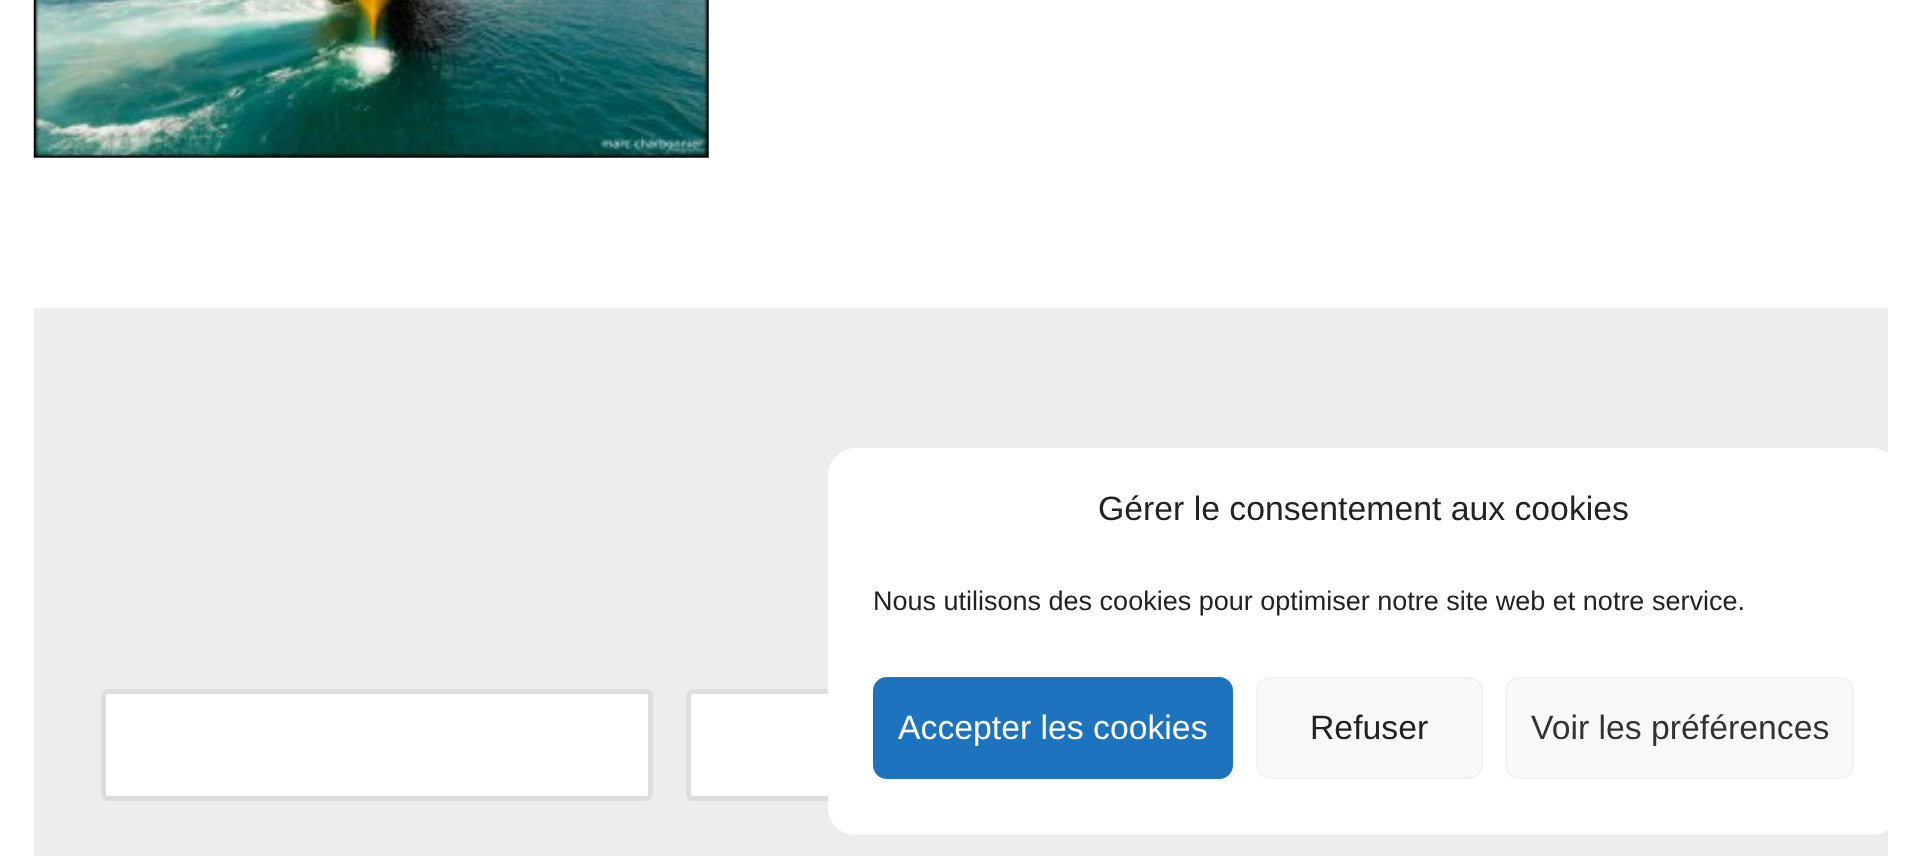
(async () => {
    const canvas = document.querySelector("canvas");
    canvas.width = 1920;
    canvas.height = 856;
    const context = canvas.getContext("2d");
    context.miterLimit = 4;
    context.fontKerning = "normal";
    function write(s, x, y, font, color) {
        context.font = font;
        context.fillStyle = color;
        context.fillText(s, x, y);
    }
    function block(x, y, w, h, color) {
        context.fillStyle = color;
        context.fillRect(x, y, w, h);
    }
    function card(x, y, w, h, r, color) {
        context.fillStyle = color;
        context.beginPath();
        context.roundRect(x, y, w, h, r);
        context.fill();
    }
    async function photo(src, x, y, w, h) {
        const img = new Image();
        img.src = src;
        await img.decode();
        context.drawImage(img, x, y, w, h);
    }

    block(0, 0, 1920, 856, "rgb(255, 255, 255)");
    await photo("media/1.png", 33, 0, 676, 158);
    block(34, 308, 1854, 548, "rgb(237, 237, 237)");
    context.fillStyle = "rgb(255, 255, 255)";
    context.beginPath();
    context.roundRect(103.5, 691.5, 547, 107, 4.5);
    context.fill();
    context.strokeStyle = "rgb(221, 221, 221)";
    context.lineWidth = 5;
    context.stroke();
    context.beginPath();
    context.roundRect(688.5, 691.5, 544, 107, 4.5);
    context.fill();
    context.stroke();
    card(828, 448, 1071, 387, 27, "rgb(255, 255, 255)");
    write("Gérer le consentement aux cookies", 1098, 520, "33.75px Liberation Sans", "rgb(34, 34, 34)");
    write("Nous utilisons des cookies pour optimiser notre site web et notre service.", 873, 610, "27px Liberation Sans", "rgb(34, 34, 34)");
    context.fillStyle = "rgb(30, 115, 190)";
    context.beginPath();
    context.roundRect(874, 678, 358, 100, 13);
    context.fill();
    context.strokeStyle = "rgb(30, 115, 190)";
    context.lineWidth = 2;
    context.stroke();
    write("Accepter les cookies", 898, 739, "33.75px Liberation Sans", "rgb(255, 255, 255)");
    context.fillStyle = "rgb(249, 249, 249)";
    context.beginPath();
    context.roundRect(1257, 678, 225, 100, 13);
    context.fill();
    context.strokeStyle = "rgb(242, 242, 242)";
    context.stroke();
    write("Refuser", 1310, 739, "33.75px Liberation Sans", "rgb(34, 34, 34)");
    context.fillStyle = "rgb(249, 249, 249)";
    context.beginPath();
    context.roundRect(1506, 678, 347, 100, 13);
    context.fill();
    context.stroke();
    write("Voir les préférences", 1531, 739, "33.75px Liberation Sans", "rgb(51, 51, 51)");
})();
